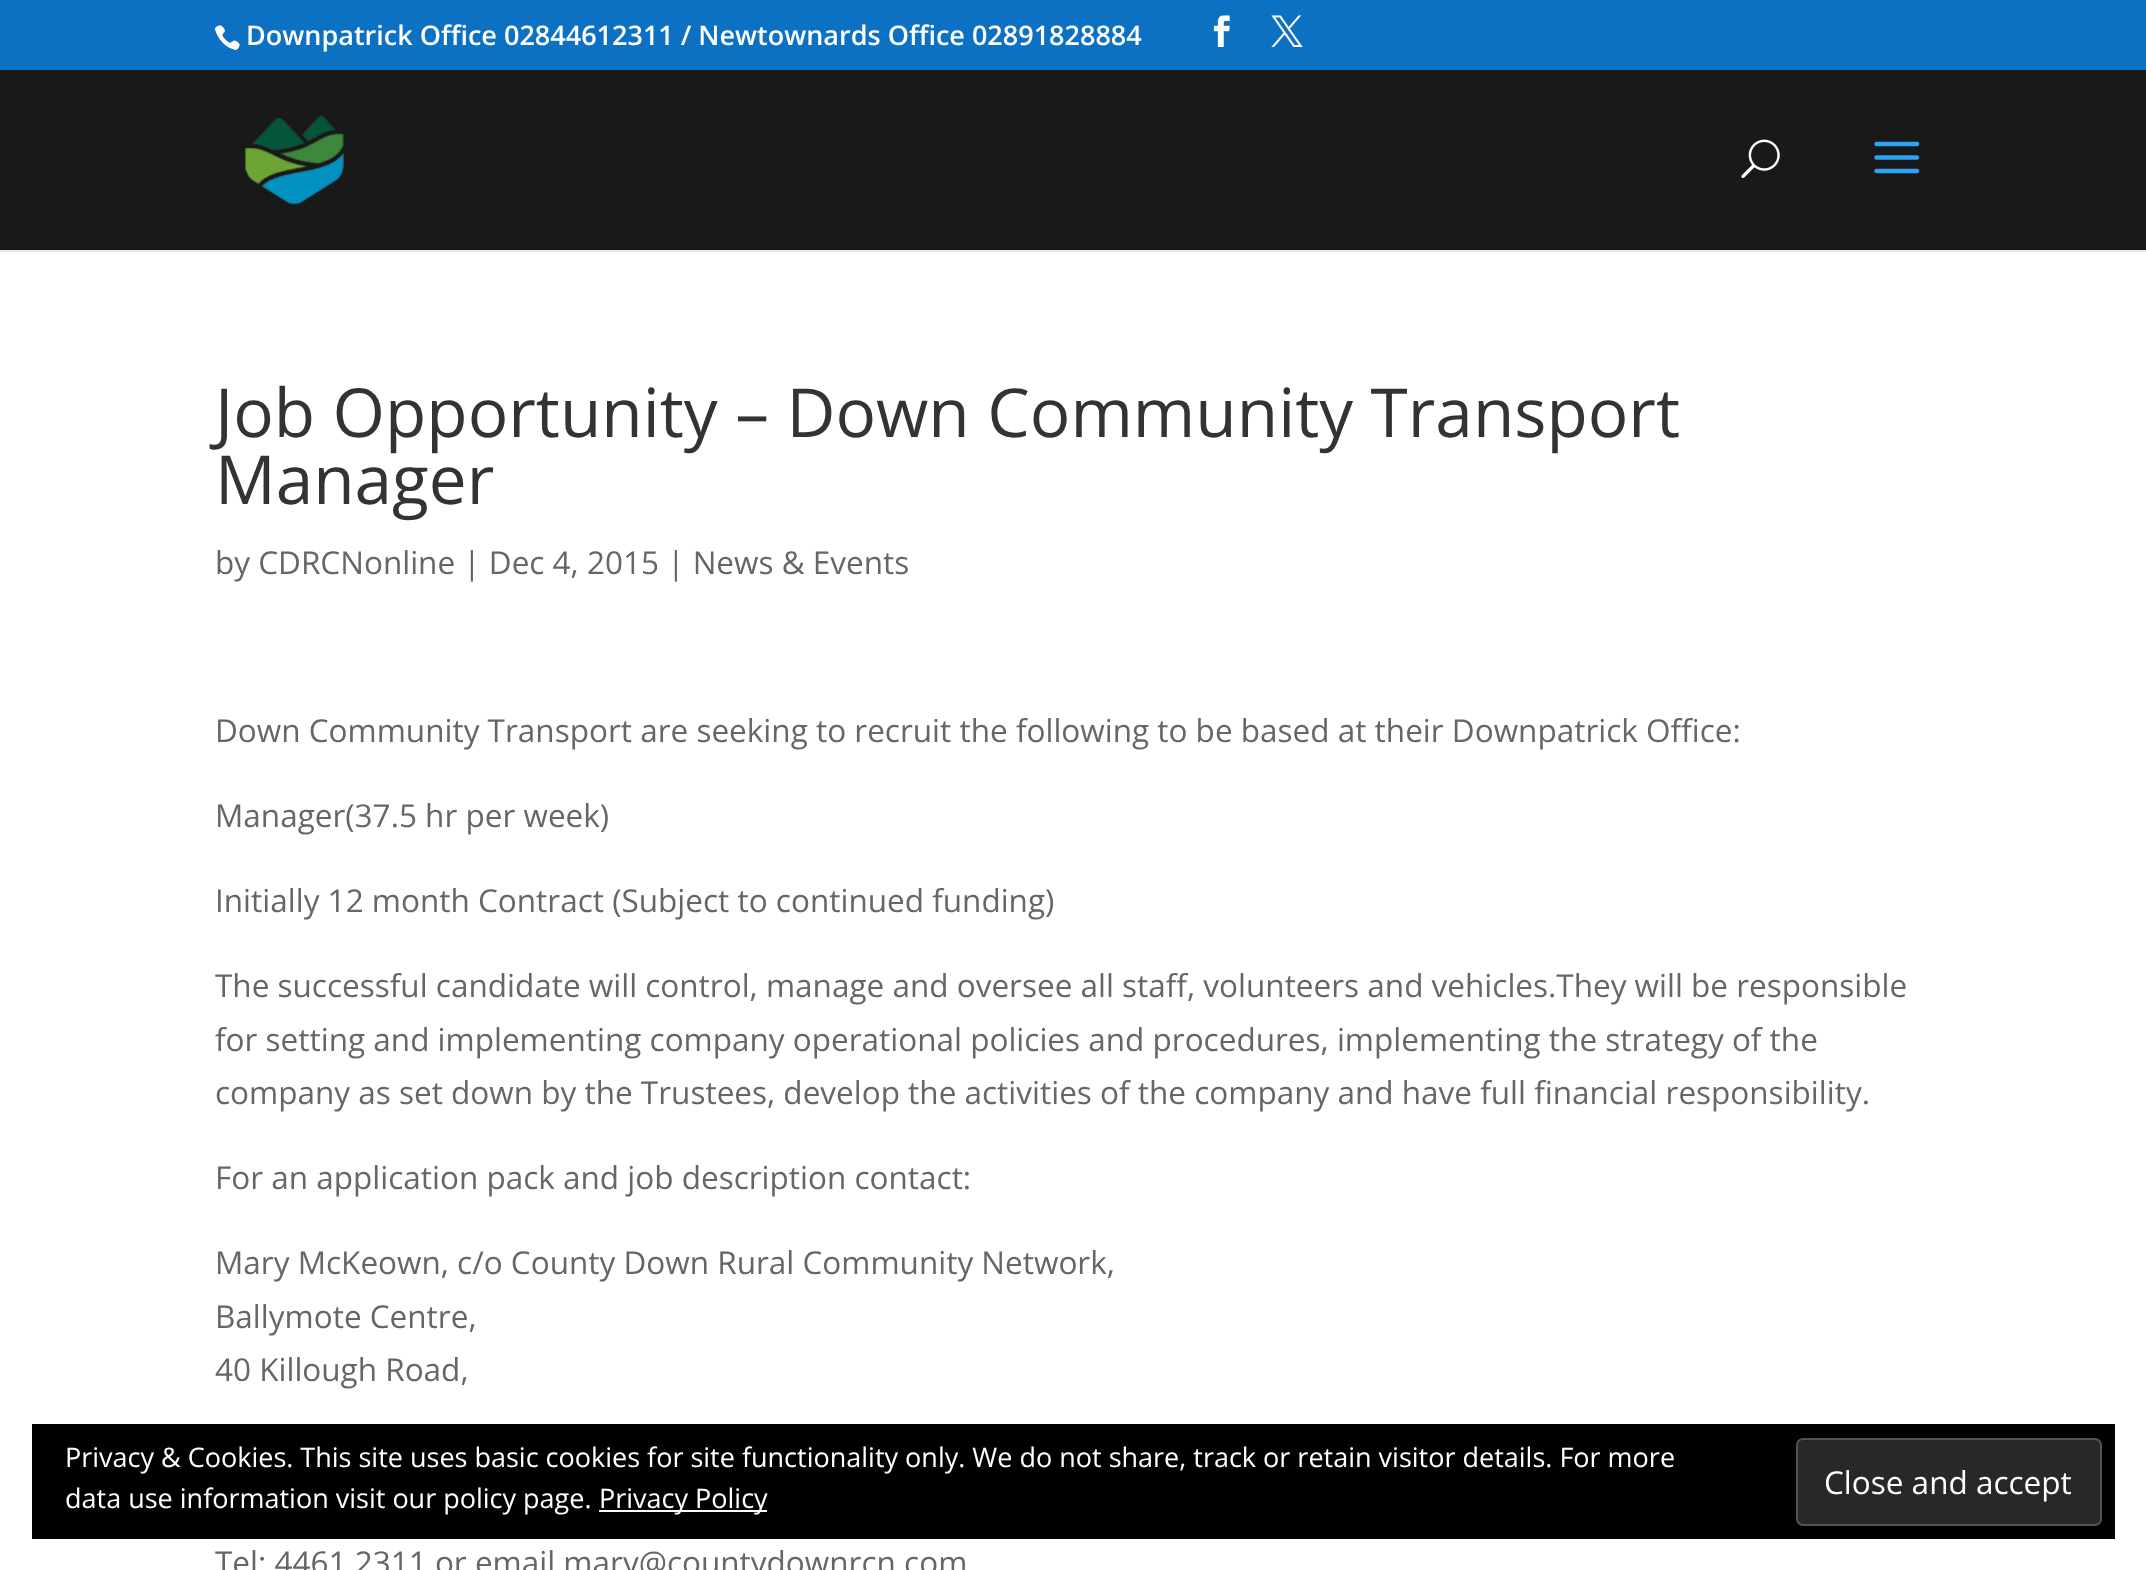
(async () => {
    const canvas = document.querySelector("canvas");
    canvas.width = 2146;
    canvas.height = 1570;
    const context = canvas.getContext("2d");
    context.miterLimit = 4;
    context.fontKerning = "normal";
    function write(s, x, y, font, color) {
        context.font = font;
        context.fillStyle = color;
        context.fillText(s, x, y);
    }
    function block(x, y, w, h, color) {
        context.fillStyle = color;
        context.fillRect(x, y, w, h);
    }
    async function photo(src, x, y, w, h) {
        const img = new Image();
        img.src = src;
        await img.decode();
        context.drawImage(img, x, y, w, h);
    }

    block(0, 0, 2146, 1570, "rgb(255, 255, 255)");
    block(0, 0, 2146, 70, "rgb(12, 113, 195)");
    await photo("media/1.png", 214, 25, 26, 26);
    write("Downpatrick Office 02844612311 / Newtownards Office 02891828884", 246, 45, "600 27px Open Sans", "rgb(255, 255, 255)");
    await photo("media/2.png", 1213, 15, 17, 32);
    await photo("media/3.png", 1271, 15, 32, 32);
    context.fillStyle = "rgb(230, 230, 230)";
    context.beginPath();
    context.moveTo(0, 250);
    context.lineTo(0, 252);
    context.lineTo(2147, 252);
    context.lineTo(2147, 72);
    context.lineTo(2146, 72);
    context.lineTo(2146, 250);
    context.closePath();
    context.fill();
    block(0, 70, 2146, 180, "rgb(25, 25, 25)");
    await photo("media/4.png", 244, 115, 100, 90);
    await photo("media/5.png", 1741, 139, 39, 39);
    await photo("media/6.png", 1874, 141, 46, 33);
    write("Job Opportunity – Down Community Transport", 215, 437, "67.5px Open Sans", "rgb(51, 51, 51)");
    write("Manager", 215, 504, "67.5px Open Sans", "rgb(51, 51, 51)");
    write("by CDRCNonline | Dec 4, 2015 | News & Events", 215, 574, "31.5px Open Sans", "rgb(102, 102, 102)");
    write("Down Community Transport are seeking to recruit the following to be based at their Downpatrick Office:", 215, 742, "31.5px Open Sans", "rgb(102, 102, 102)");
    write("Manager(37.5 hr per week)", 215, 827, "31.5px Open Sans", "rgb(102, 102, 102)");
    write("Initially 12 month Contract (Subject to continued funding)", 215, 912, "31.5px Open Sans", "rgb(102, 102, 102)");
    write("The successful candidate will control, manage and oversee all staff, volunteers and vehicles.They will be responsible", 215, 997, "31.5px Open Sans", "rgb(102, 102, 102)");
    write("for setting and implementing company operational policies and procedures, implementing the strategy of the", 215, 1051, "31.5px Open Sans", "rgb(102, 102, 102)");
    write("company as set down by the Trustees, develop the activities of the company and have full financial responsibility.", 215, 1104, "31.5px Open Sans", "rgb(102, 102, 102)");
    write("For an application pack and job description contact:", 215, 1189, "31.5px Open Sans", "rgb(102, 102, 102)");
    write("Mary McKeown, c/o County Down Rural Community Network,", 215, 1274, "31.5px Open Sans", "rgb(102, 102, 102)");
    write("Ballymote Centre,", 215, 1328, "31.5px Open Sans", "rgb(102, 102, 102)");
    write("40 Killough Road,", 215, 1381, "31.5px Open Sans", "rgb(102, 102, 102)");
    write("Tel: 4461 2311 or email mary@countydownrcn.com", 215, 1574, "31.5px Open Sans", "rgb(102, 102, 102)");
    block(32, 1424, 2083, 115, "rgb(0, 0, 0)");
    write("Privacy & Cookies. This site uses basic cookies for site functionality only. We do not share, track or retain visitor details. For more", 65, 1467, "27px Open Sans", "rgb(255, 255, 255)");
    write("data use information visit our policy page.", 65, 1508, "27px Open Sans", "rgb(255, 255, 255)");
    block(599, 1510, 168, 2, "rgb(255, 255, 255)");
    write("Privacy Policy", 599, 1508, "27px Open Sans", "rgb(255, 255, 255)");
    context.fillStyle = "rgb(40, 40, 40)";
    context.beginPath();
    context.roundRect(1797, 1439, 304, 86, 6);
    context.fill();
    context.strokeStyle = "rgb(83, 83, 83)";
    context.lineWidth = 2;
    context.stroke();
    write("Close and accept", 1824, 1494, "31.5px Open Sans", "rgb(255, 255, 255)");
})();
